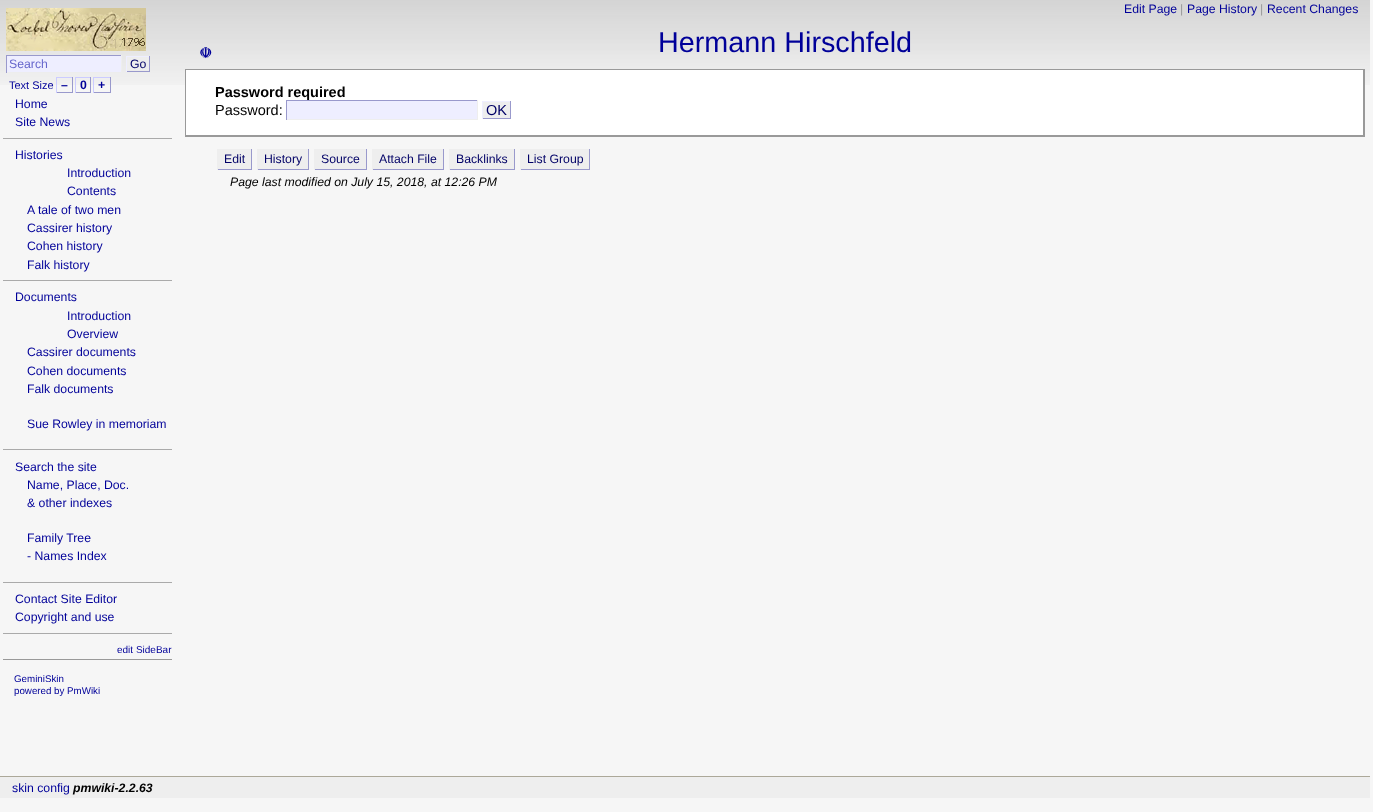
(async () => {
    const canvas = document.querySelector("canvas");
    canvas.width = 1373;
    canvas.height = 812;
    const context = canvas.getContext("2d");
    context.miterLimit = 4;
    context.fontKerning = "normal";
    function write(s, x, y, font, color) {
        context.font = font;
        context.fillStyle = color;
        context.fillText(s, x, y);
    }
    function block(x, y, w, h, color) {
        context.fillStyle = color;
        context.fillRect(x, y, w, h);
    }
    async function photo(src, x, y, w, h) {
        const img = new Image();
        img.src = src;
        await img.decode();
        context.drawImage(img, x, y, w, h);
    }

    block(0, 0, 1373, 812, "rgb(246, 246, 246)");
    await photo("media/1.png", 0, 0, 1370, 85);
    await photo("media/2.png", 6, 8, 140, 43);
    block(7, 56, 114, 16, "rgb(238, 238, 255)");
    block(6, 55, 116, 1, "rgb(153, 153, 204)");
    block(121, 55, 1, 18, "rgb(238, 238, 238)");
    block(6, 55, 1, 18, "rgb(153, 153, 204)");
    write("Search", 9, 68, "12.25px Liberation Sans", "rgb(102, 102, 204)");
    block(127, 57, 22, 13, "rgb(238, 238, 238)");
    block(126, 56, 24, 1, "rgb(238, 238, 255)");
    block(149, 56, 1, 16, "rgb(153, 153, 204)");
    block(126, 71, 24, 1, "rgb(153, 153, 204)");
    block(126, 56, 1, 16, "rgb(238, 238, 255)");
    write("Go", 130, 68, "12.25px Liberation Sans", "rgb(0, 0, 102)");
    write("Text Size", 9, 89, "11px Liberation Sans", "rgb(0, 0, 153)");
    block(56, 77, 17, 1, "rgb(204, 204, 255)");
    block(72, 77, 1, 16, "rgb(153, 153, 204)");
    block(56, 92, 17, 1, "rgb(153, 153, 204)");
    block(56, 77, 1, 16, "rgb(204, 204, 255)");
    write("–", 61, 89, "bold 12.25px Liberation Sans", "rgb(0, 0, 153)");
    write("0", 80, 89, "bold 12.25px Liberation Sans", "rgb(0, 0, 153)");
    block(75, 77, 16, 1, "rgb(204, 204, 255)");
    block(90, 77, 1, 16, "rgb(153, 153, 204)");
    block(75, 92, 16, 1, "rgb(153, 153, 204)");
    block(75, 77, 1, 16, "rgb(204, 204, 255)");
    write("+", 98, 89, "bold 12.25px Liberation Sans", "rgb(0, 0, 153)");
    block(93, 77, 18, 1, "rgb(204, 204, 255)");
    block(110, 77, 1, 16, "rgb(153, 153, 204)");
    block(93, 92, 18, 1, "rgb(153, 153, 204)");
    block(93, 77, 1, 16, "rgb(204, 204, 255)");
    write("Home", 15, 108, "12.25px Liberation Sans", "rgb(0, 0, 153)");
    write("Site News", 15, 126, "12.25px Liberation Sans", "rgb(0, 0, 153)");
    block(3, 138, 169, 1, "rgb(170, 170, 170)");
    write("Histories", 15, 159, "12.25px Liberation Sans", "rgb(0, 0, 153)");
    write("Introduction", 67, 177, "12.25px Liberation Sans", "rgb(0, 0, 153)");
    write("Contents", 67, 195, "12.25px Liberation Sans", "rgb(0, 0, 153)");
    write("A tale of two men", 27, 214, "12.25px Liberation Sans", "rgb(0, 0, 153)");
    write("Cassirer history", 27, 232, "12.25px Liberation Sans", "rgb(0, 0, 153)");
    write("Cohen history", 27, 250, "12.25px Liberation Sans", "rgb(0, 0, 153)");
    write("Falk history", 27, 269, "12.25px Liberation Sans", "rgb(0, 0, 153)");
    block(3, 280, 169, 1, "rgb(170, 170, 170)");
    write("Documents", 15, 301, "12.25px Liberation Sans", "rgb(0, 0, 153)");
    write("Introduction", 67, 320, "12.25px Liberation Sans", "rgb(0, 0, 153)");
    write("Overview", 67, 338, "12.25px Liberation Sans", "rgb(0, 0, 153)");
    write("Cassirer documents", 27, 356, "12.25px Liberation Sans", "rgb(0, 0, 153)");
    write("Cohen documents", 27, 375, "12.25px Liberation Sans", "rgb(0, 0, 153)");
    write("Falk documents", 27, 393, "12.25px Liberation Sans", "rgb(0, 0, 153)");
    write("Sue Rowley in memoriam", 27, 428, "12.25px Liberation Sans", "rgb(0, 0, 153)");
    block(3, 449, 169, 1, "rgb(170, 170, 170)");
    write("Search the site", 15, 471, "12.25px Liberation Sans", "rgb(0, 0, 153)");
    write("Name, Place, Doc.", 27, 489, "12.25px Liberation Sans", "rgb(0, 0, 153)");
    write("& other indexes", 27, 507, "12.25px Liberation Sans", "rgb(0, 0, 153)");
    write("Family Tree", 27, 542, "12.25px Liberation Sans", "rgb(0, 0, 153)");
    write("- Names Index", 27, 560, "12.25px Liberation Sans", "rgb(0, 0, 153)");
    block(3, 582, 169, 1, "rgb(170, 170, 170)");
    write("Contact Site Editor", 15, 603, "12.25px Liberation Sans", "rgb(0, 0, 153)");
    write("Copyright and use", 15, 621, "12.25px Liberation Sans", "rgb(0, 0, 153)");
    block(3, 633, 169, 1, "rgb(170, 170, 170)");
    write("edit SideBar", 117, 653, "10px Liberation Sans", "rgb(0, 0, 153)");
    block(3, 659, 169, 1, "rgb(153, 153, 153)");
    write("GeminiSkin", 14, 682, "9.75px Liberation Sans", "rgb(0, 0, 153)");
    write("powered by PmWiki", 14, 694, "9.75px Liberation Sans", "rgb(0, 0, 153)");
    write("Edit Page", 1124, 13, "12.25px Liberation Sans", "rgb(0, 0, 153)");
    write("|", 1180, 13, "12.25px Liberation Sans", "rgb(153, 153, 153)");
    write("Page History", 1187, 13, "12.25px Liberation Sans", "rgb(0, 0, 153)");
    write("|", 1260, 13, "12.25px Liberation Sans", "rgb(153, 153, 153)");
    write("Recent Changes", 1267, 13, "12.25px Liberation Sans", "rgb(0, 0, 153)");
    write("☫", 199, 58, "bold 14.5px DejaVu Sans", "rgb(0, 0, 153)");
    write("Hermann Hirschfeld", 658, 52, "28.75px Liberation Sans", "rgb(0, 0, 153)");
    block(186, 70, 1177, 65, "rgb(255, 255, 255)");
    block(185, 69, 1180, 1, "rgb(153, 153, 153)");
    block(1363, 69, 2, 68, "rgb(153, 153, 153)");
    block(185, 135, 1180, 2, "rgb(153, 153, 153)");
    block(185, 69, 1, 68, "rgb(153, 153, 153)");
    write("Password required", 215, 97, "bold 14.5px Liberation Sans", "rgb(0, 0, 0)");
    write("Password:", 215, 115, "14.5px Liberation Sans", "rgb(0, 0, 0)");
    block(287, 101, 190, 18, "rgb(238, 238, 255)");
    block(286, 100, 192, 1, "rgb(153, 153, 204)");
    block(477, 100, 1, 20, "rgb(238, 238, 238)");
    block(286, 119, 192, 1, "rgb(238, 238, 238)");
    block(286, 100, 1, 20, "rgb(153, 153, 204)");
    block(483, 102, 27, 16, "rgb(238, 238, 238)");
    block(482, 101, 29, 1, "rgb(238, 238, 255)");
    block(510, 101, 1, 18, "rgb(153, 153, 204)");
    block(482, 118, 29, 1, "rgb(153, 153, 204)");
    block(482, 101, 1, 18, "rgb(238, 238, 255)");
    write("OK", 486, 115, "14.5px Liberation Sans", "rgb(0, 0, 102)");
    block(218, 149, 33, 20, "rgb(238, 238, 238)");
    block(251, 149, 1, 21, "rgb(153, 153, 204)");
    block(217, 169, 35, 1, "rgb(153, 153, 204)");
    block(217, 149, 1, 21, "rgb(238, 238, 238)");
    write("Edit", 224, 163, "12.25px Liberation Sans", "rgb(0, 0, 102)");
    block(258, 149, 50, 20, "rgb(238, 238, 238)");
    block(308, 149, 1, 21, "rgb(153, 153, 204)");
    block(257, 169, 52, 1, "rgb(153, 153, 204)");
    block(257, 149, 1, 21, "rgb(238, 238, 238)");
    write("History", 264, 163, "12.25px Liberation Sans", "rgb(0, 0, 102)");
    block(315, 149, 51, 20, "rgb(238, 238, 238)");
    block(366, 149, 1, 21, "rgb(153, 153, 204)");
    block(314, 169, 53, 1, "rgb(153, 153, 204)");
    block(314, 149, 1, 21, "rgb(238, 238, 238)");
    write("Source", 321, 163, "12.25px Liberation Sans", "rgb(0, 0, 102)");
    block(373, 149, 70, 20, "rgb(238, 238, 238)");
    block(443, 149, 1, 21, "rgb(153, 153, 204)");
    block(372, 169, 72, 1, "rgb(153, 153, 204)");
    block(372, 149, 1, 21, "rgb(238, 238, 238)");
    write("Attach File", 379, 163, "12.25px Liberation Sans", "rgb(0, 0, 102)");
    block(450, 149, 64, 20, "rgb(238, 238, 238)");
    block(514, 149, 1, 21, "rgb(153, 153, 204)");
    block(449, 169, 66, 1, "rgb(153, 153, 204)");
    block(449, 149, 1, 21, "rgb(238, 238, 238)");
    write("Backlinks", 456, 163, "12.25px Liberation Sans", "rgb(0, 0, 102)");
    block(521, 149, 68, 20, "rgb(238, 238, 238)");
    block(589, 149, 1, 21, "rgb(153, 153, 204)");
    block(520, 169, 70, 1, "rgb(153, 153, 204)");
    block(520, 149, 1, 21, "rgb(238, 238, 238)");
    write("List Group", 527, 163, "12.25px Liberation Sans", "rgb(0, 0, 102)");
    write("Page last modified on July 15, 2018, at 12:26 PM", 230, 186, "italic 12.25px Liberation Sans", "rgb(0, 0, 0)");
    block(0, 777, 1370, 21, "rgb(238, 238, 238)");
    block(0, 776, 1370, 1, "rgb(172, 168, 153)");
    write("skin config", 12, 792, "12.25px Liberation Sans", "rgb(0, 0, 153)");
    write("pmwiki-2.2.63", 73, 792, "italic bold 12.25px Liberation Sans", "rgb(0, 0, 0)");
})();
